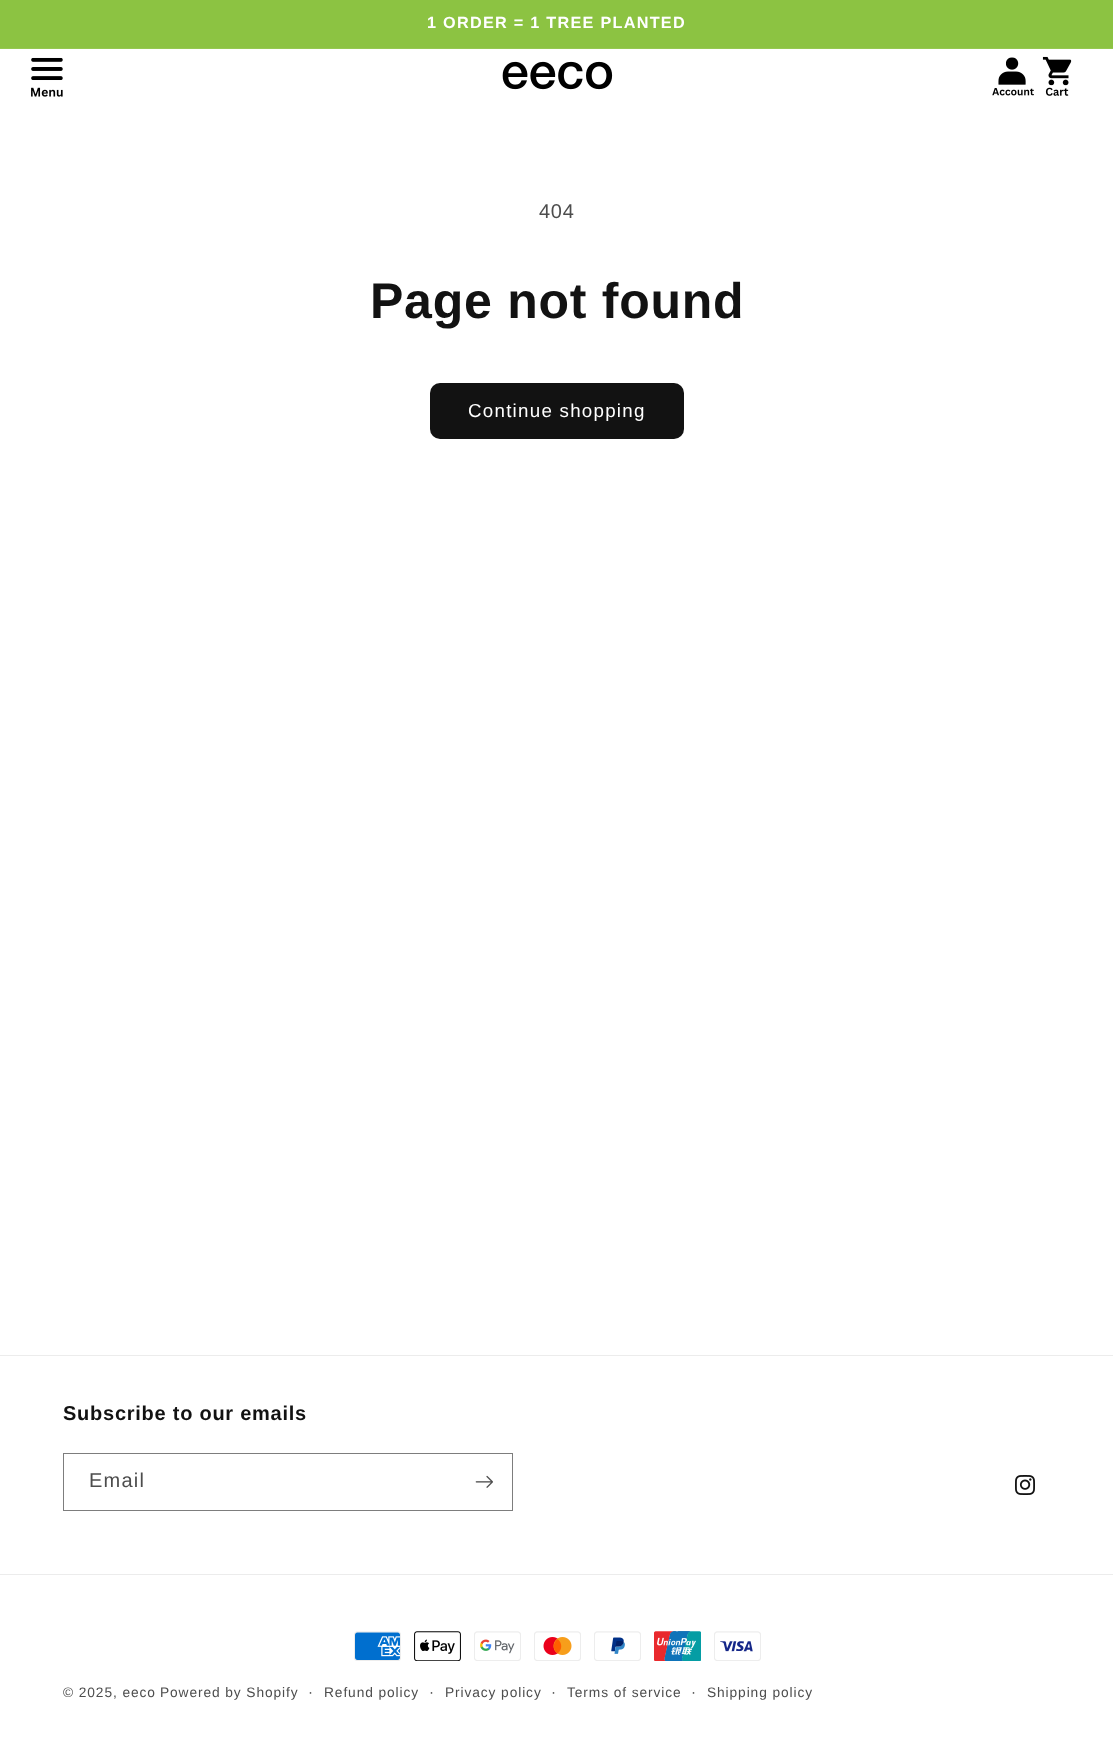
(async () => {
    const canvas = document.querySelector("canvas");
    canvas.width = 1113;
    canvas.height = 1750;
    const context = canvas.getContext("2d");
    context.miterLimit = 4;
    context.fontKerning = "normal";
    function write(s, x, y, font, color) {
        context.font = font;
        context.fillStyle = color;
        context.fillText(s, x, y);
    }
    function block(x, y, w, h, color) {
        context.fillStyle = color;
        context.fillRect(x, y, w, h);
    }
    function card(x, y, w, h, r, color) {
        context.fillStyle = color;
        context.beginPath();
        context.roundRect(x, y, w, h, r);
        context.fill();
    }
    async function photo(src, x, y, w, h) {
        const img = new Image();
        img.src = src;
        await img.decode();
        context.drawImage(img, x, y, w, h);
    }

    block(0, 0, 1113, 1750, "rgb(255, 255, 255)");
    block(0, 0, 1113, 48, "rgb(140, 195, 66)");
    block(0, 48, 1113, 1, "rgb(149, 200, 81)");
    context.letterSpacing = "1.25px";
    write("1 ORDER = 1 TREE PLANTED", 427, 28, "bold 16.25px Liberation Sans", "rgb(255, 255, 255)");
    await photo("media/1.png", 31, 57, 32, 40);
    await photo("media/2.png", 502, 61, 111, 29);
    await photo("media/3.png", 992, 57, 42, 39);
    await photo("media/4.png", 1042, 56, 30, 40);
    context.letterSpacing = "0.75px";
    write("404", 539, 218, "20px Liberation Sans", "rgb(77, 77, 77)");
    write("Page not found", 370, 318, "bold 50px Liberation Sans", "rgb(18, 18, 18)");
    card(430, 383, 254, 56, 10, "rgb(18, 18, 18)");
    context.letterSpacing = "1.25px";
    write("Continue shopping", 468, 417, "18.75px Liberation Sans", "rgb(255, 255, 255)");
    block(0, 1355, 1113, 1, "rgb(236, 236, 236)");
    context.letterSpacing = "0.75px";
    write("Subscribe to our emails", 63, 1420, "bold 20px Liberation Sans", "rgb(18, 18, 18)");
    context.strokeStyle = "rgb(125, 125, 125)";
    context.strokeRect(63.5, 1453.5, 449, 57);
    context.letterSpacing = "1.25px";
    write("Email", 89, 1487, "20px Liberation Sans", "rgb(77, 77, 77)");
    await photo("media/5.png", 475, 1475, 18, 13);
    await photo("media/6.png", 1015, 1475, 20, 20);
    block(0, 1574, 1113, 1, "rgb(236, 236, 236)");
    await photo("media/7.png", 354, 1631, 47, 30);
    await photo("media/8.png", 414, 1631, 47, 30);
    await photo("media/9.png", 474, 1631, 47, 30);
    await photo("media/10.png", 534, 1631, 47, 30);
    await photo("media/11.png", 594, 1631, 47, 30);
    await photo("media/12.png", 654, 1631, 47, 30);
    await photo("media/13.png", 714, 1631, 47, 30);
    context.letterSpacing = "0.9px";
    write("© 2025, eeco", 63, 1697, "13.75px Liberation Sans", "rgb(77, 77, 77)");
    write("Powered by Shopify", 160, 1697, "13.75px Liberation Sans", "rgb(77, 77, 77)");
    write("·", 308, 1697, "15px Liberation Sans", "rgb(77, 77, 77)");
    write("Refund policy", 324, 1697, "13.75px Liberation Sans", "rgb(77, 77, 77)");
    write("·", 429, 1697, "15px Liberation Sans", "rgb(77, 77, 77)");
    write("Privacy policy", 445, 1697, "13.75px Liberation Sans", "rgb(77, 77, 77)");
    write("·", 551, 1697, "15px Liberation Sans", "rgb(77, 77, 77)");
    write("Terms of service", 567, 1697, "13.75px Liberation Sans", "rgb(77, 77, 77)");
    write("·", 691, 1697, "15px Liberation Sans", "rgb(77, 77, 77)");
    write("Shipping policy", 707, 1697, "13.75px Liberation Sans", "rgb(77, 77, 77)");
})();
